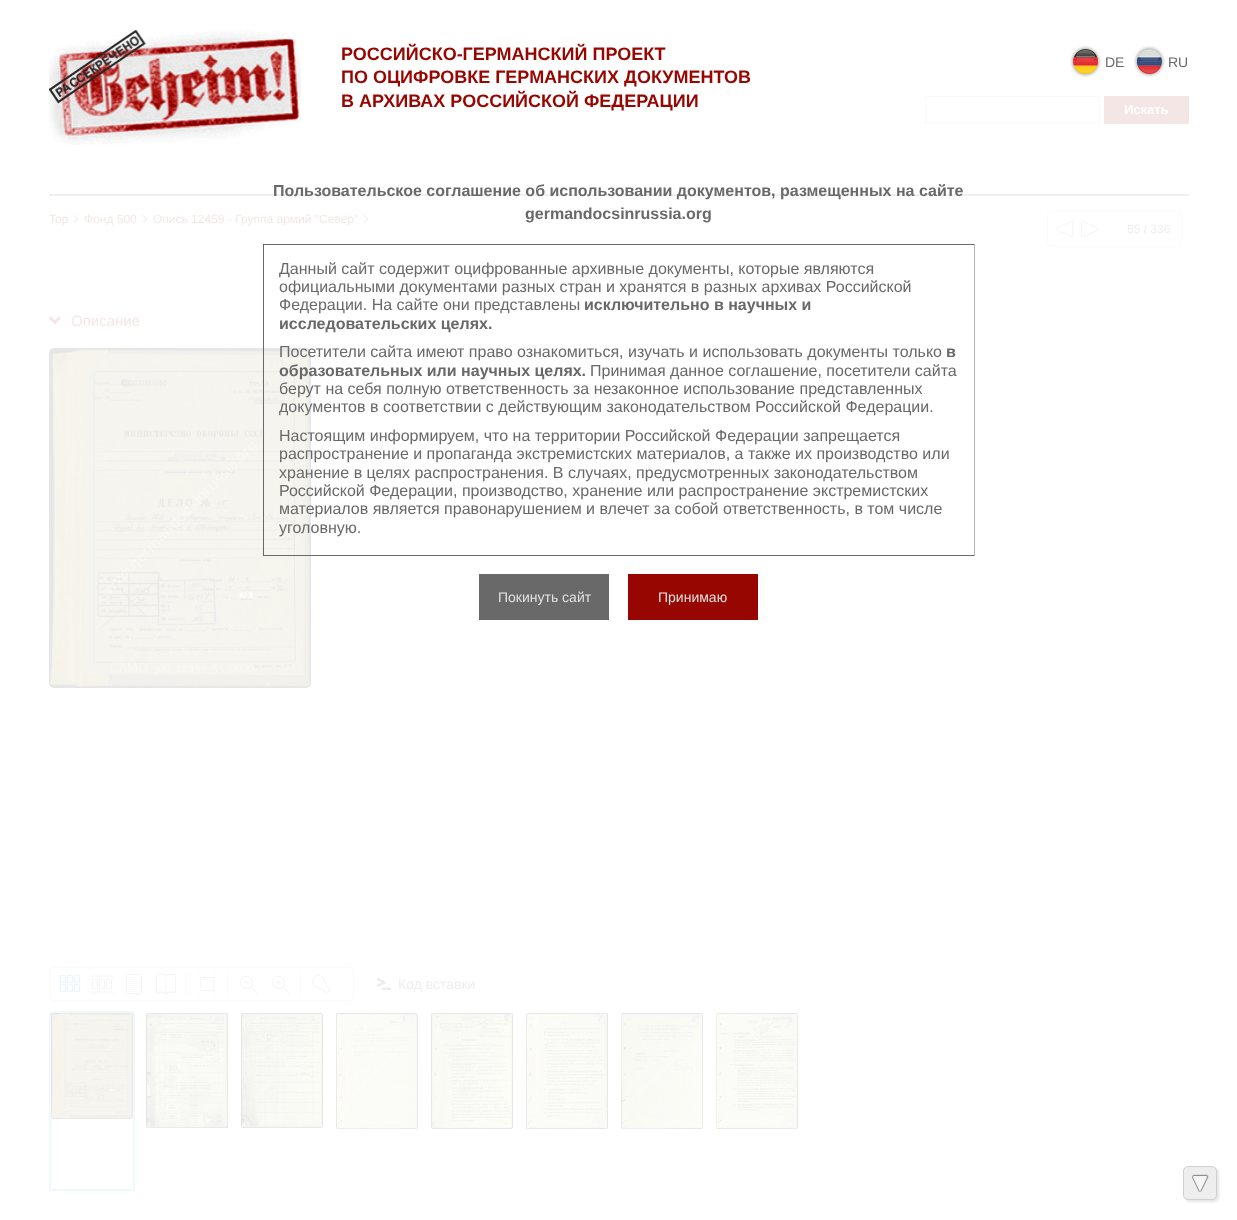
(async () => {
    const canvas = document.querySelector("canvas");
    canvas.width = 1237;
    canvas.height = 1220;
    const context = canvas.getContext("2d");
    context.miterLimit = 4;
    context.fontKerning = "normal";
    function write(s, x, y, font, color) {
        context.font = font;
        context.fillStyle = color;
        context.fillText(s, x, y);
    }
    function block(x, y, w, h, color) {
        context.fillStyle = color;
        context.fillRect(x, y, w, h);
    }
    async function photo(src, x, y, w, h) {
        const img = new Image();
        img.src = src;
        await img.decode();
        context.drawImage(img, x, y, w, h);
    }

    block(0, 0, 1237, 1220, "rgb(255, 255, 255)");
    await photo("media/1.png", 49, 30, 252, 115);
    write("РОССИЙСКО-ГЕРМАНСКИЙ ПРОЕКТ", 341, 60, "bold 18px Liberation Sans", "rgb(151, 6, 0)");
    write("ПО ОЦИФРОВКЕ ГЕРМАНСКИХ ДОКУМЕНТОВ", 341, 83, "bold 18px Liberation Sans", "rgb(151, 6, 0)");
    write("В АРХИВАХ РОССИЙСКОЙ ФЕДЕРАЦИИ", 341, 107, "bold 18px Liberation Sans", "rgb(151, 6, 0)");
    await photo("media/2.png", 1070, 46, 31, 31);
    write("DE", 1105, 67, "14px Liberation Sans", "rgb(105, 105, 105)");
    await photo("media/3.png", 1134, 46, 31, 31);
    write("RU", 1168, 67, "14px Liberation Sans", "rgb(105, 105, 105)");
    context.strokeStyle = "rgb(249, 249, 249)";
    context.strokeRect(925.5, 96.5, 174, 27);
    block(1104, 96, 85, 28, "rgb(245, 230, 230)");
    write("Искать", 1124, 114, "bold 13px Liberation Sans", "rgb(255, 255, 255)");
    block(49, 194, 1140, 2, "rgb(240, 240, 240)");
    write("Top", 49, 223, "12px Liberation Sans", "rgb(245, 230, 230)");
    await photo("media/4.png", 73, 215, 6, 8);
    write("Фонд 500", 84, 223, "12px Liberation Sans", "rgb(245, 230, 230)");
    await photo("media/4.png", 142, 215, 6, 8);
    write("Опись 12459 - Группа армий \"Север\"", 153, 223, "12px Liberation Sans", "rgb(245, 230, 230)");
    await photo("media/4.png", 363, 215, 6, 8);
    context.beginPath();
    context.roundRect(1047.5, 211.5, 134, 35, 4.5);
    context.strokeStyle = "rgb(250, 250, 250)";
    context.stroke();
    await photo("media/5.png", 1056, 221, 18, 17);
    await photo("media/6.png", 1081, 221, 18, 17);
    write("55 / 336", 1127, 233, "12px Liberation Sans", "rgb(238, 238, 238)");
    await photo("media/7.png", 49, 316, 12, 9);
    write("Описание", 71, 326, "15px Liberation Sans", "rgb(245, 230, 230)");
    await photo("media/8.png", 49, 348, 262, 340);
    context.beginPath();
    context.roundRect(49.5, 967.5, 304, 33, 4.5);
    context.stroke();
    await photo("media/9.png", 58, 975, 23, 20);
    await photo("media/10.png", 91, 975, 23, 20);
    await photo("media/11.png", 126, 974, 17, 21);
    await photo("media/12.png", 156, 974, 21, 21);
    block(186, 972, 1, 24, "rgb(250, 250, 250)");
    await photo("media/13.png", 196, 973, 22, 22);
    block(227, 972, 1, 24, "rgb(250, 250, 250)");
    await photo("media/14.png", 240, 976, 18, 18);
    await photo("media/15.png", 272, 976, 18, 18);
    block(300, 972, 1, 24, "rgb(250, 250, 250)");
    await photo("media/16.png", 312, 975, 19, 19);
    await photo("media/17.png", 377, 977, 14, 13);
    write("Код вставки", 398, 989, "14px Liberation Sans", "rgb(238, 238, 238)");
    context.beginPath();
    context.roundRect(50, 1012, 84, 178, 1);
    context.strokeStyle = "rgb(238, 248, 253)";
    context.lineWidth = 2;
    context.stroke();
    await photo("media/18.png", 51, 1013, 82, 106);
    await photo("media/19.png", 146, 1013, 82, 115);
    await photo("media/20.png", 241, 1013, 82, 115);
    await photo("media/21.png", 336, 1013, 82, 116);
    await photo("media/22.png", 431, 1013, 82, 116);
    await photo("media/23.png", 526, 1013, 82, 116);
    await photo("media/24.png", 621, 1013, 82, 116);
    await photo("media/25.png", 716, 1013, 82, 116);
    context.fillStyle = "rgba(0, 0, 0, 0.1)";
    context.filter = "blur(1px)";
    context.beginPath();
    context.roundRect(1185, 1168, 34, 34, 5);
    context.fill();
    context.filter = "none";
    context.fillStyle = "rgb(238, 238, 238)";
    context.beginPath();
    context.roundRect(1183.5, 1166.5, 33, 33, 4.5);
    context.fill();
    context.strokeStyle = "rgb(208, 208, 208)";
    context.lineWidth = 1;
    context.stroke();
    await photo("media/26.png", 1192, 1174, 17, 18);
    write("Пользовательское соглашение об использовании документов, размещенных на сайте", 273, 196, "bold 16px Liberation Sans", "rgb(105, 105, 105)");
    write("germandocsinrussia.org", 525, 219, "bold 16px Liberation Sans", "rgb(105, 105, 105)");
    context.beginPath();
    context.moveTo(263, 244);
    context.lineTo(975, 244);
    context.lineTo(974, 245);
    context.lineTo(264, 245);
    context.closePath();
    context.fill();
    context.fillStyle = "rgba(105, 105, 105, 0.5)";
    context.beginPath();
    context.moveTo(975, 244);
    context.lineTo(975, 556);
    context.lineTo(974, 555);
    context.lineTo(974, 245);
    context.closePath();
    context.fill();
    context.fillStyle = "rgb(105, 105, 105)";
    context.beginPath();
    context.moveTo(975, 556);
    context.lineTo(263, 556);
    context.lineTo(264, 555);
    context.lineTo(974, 555);
    context.closePath();
    context.fill();
    block(263, 244, 1, 312, "rgb(105, 105, 105)");
    write("Данный сайт содержит оцифрованные архивные документы, которые являются", 279, 274, "16px Liberation Sans", "rgb(105, 105, 105)");
    write("официальными документами разных стран и хранятся в разных архивах Российской", 279, 292, "16px Liberation Sans", "rgb(105, 105, 105)");
    write("Федерации. На сайте они представлены", 279, 310, "16px Liberation Sans", "rgb(105, 105, 105)");
    write("исключительно в научных и", 584, 310, "bold 16px Liberation Sans", "rgb(105, 105, 105)");
    write("исследовательских целях.", 279, 329, "bold 16px Liberation Sans", "rgb(105, 105, 105)");
    write("Посетители сайта имеют право ознакомиться, изучать и использовать документы только", 279, 357, "16px Liberation Sans", "rgb(105, 105, 105)");
    write("в", 946, 357, "bold 16px Liberation Sans", "rgb(105, 105, 105)");
    write("образовательных или научных целях.", 279, 376, "bold 16px Liberation Sans", "rgb(105, 105, 105)");
    write("Принимая данное соглашение, посетители сайта", 590, 376, "16px Liberation Sans", "rgb(105, 105, 105)");
    write("берут на себя полную ответственность за незаконное использование представленных", 279, 394, "16px Liberation Sans", "rgb(105, 105, 105)");
    write("документов в соответствии с действующим законодательством Российской Федерации.", 279, 412, "16px Liberation Sans", "rgb(105, 105, 105)");
    write("Настоящим информируем, что на территории Российской Федерации запрещается", 279, 441, "16px Liberation Sans", "rgb(105, 105, 105)");
    write("распространение и пропаганда экстремистских материалов, а также их производство или", 279, 459, "16px Liberation Sans", "rgb(105, 105, 105)");
    write("хранение в целях распространения. В случаях, предусмотренных законодательством", 279, 478, "16px Liberation Sans", "rgb(105, 105, 105)");
    write("Российской Федерации, производство, хранение или распространение экстремистских", 279, 496, "16px Liberation Sans", "rgb(105, 105, 105)");
    write("материалов является правонарушением и влечет за собой ответственность, в том числе", 279, 514, "16px Liberation Sans", "rgb(105, 105, 105)");
    write("уголовную.", 279, 533, "16px Liberation Sans", "rgb(105, 105, 105)");
    block(479, 574, 130, 46, "rgb(105, 105, 105)");
    write("Покинуть сайт", 498, 602, "14px Liberation Sans", "rgb(224, 224, 224)");
    block(628, 574, 130, 46, "rgb(151, 6, 0)");
    write("Принимаю", 658, 602, "14px Liberation Sans", "rgb(224, 224, 224)");
})();
